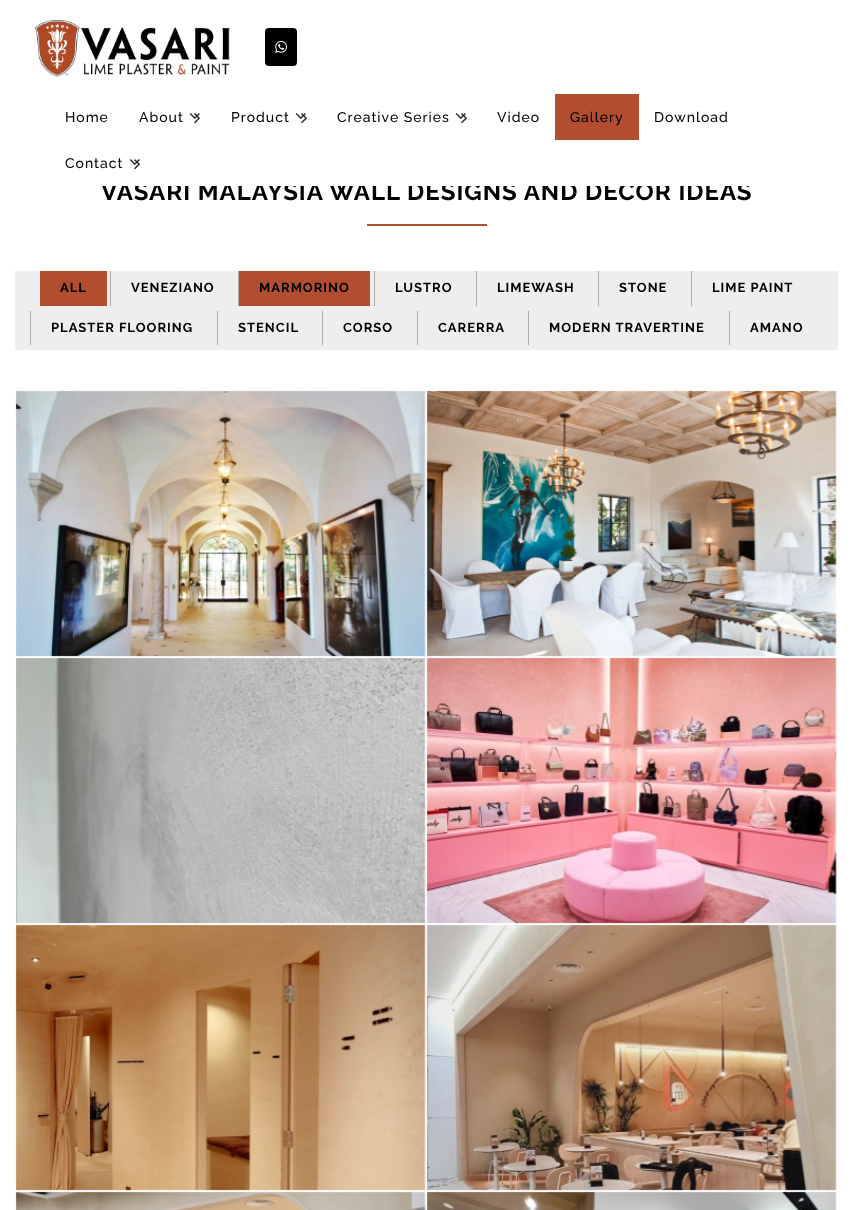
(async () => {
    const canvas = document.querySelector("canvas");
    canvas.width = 853;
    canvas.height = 1210;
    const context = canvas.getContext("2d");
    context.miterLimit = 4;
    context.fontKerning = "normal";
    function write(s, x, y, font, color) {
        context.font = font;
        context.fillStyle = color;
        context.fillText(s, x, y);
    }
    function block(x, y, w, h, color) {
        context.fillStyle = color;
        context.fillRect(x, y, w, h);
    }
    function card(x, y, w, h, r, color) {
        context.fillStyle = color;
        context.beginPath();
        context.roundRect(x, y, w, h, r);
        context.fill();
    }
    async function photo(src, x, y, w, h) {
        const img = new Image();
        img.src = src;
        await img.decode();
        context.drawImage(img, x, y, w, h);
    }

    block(0, 0, 853, 1210, "rgb(255, 255, 255)");
    context.letterSpacing = "1px";
    write("VASARI MALAYSIA WALL DESIGNS AND DÉCOR IDEAS", 101, 200, "bold 24px Raleway", "rgb(0, 0, 0)");
    block(100, 178, 650, 8, "rgb(255, 255, 255)");
    await photo("media/1.png", 35, 20, 195, 57);
    card(265, 28, 32, 38, 4, "rgb(0, 0, 0)");
    await photo("media/2.png", 275, 41, 12, 12);
    write("Home", 65, 122, "500 14px Raleway", "rgb(0, 0, 0)");
    write("About", 139, 122, "500 14px Raleway", "rgb(0, 0, 0)");
    await photo("media/3.png", 189, 113, 11, 6);
    await photo("media/4.png", 194, 113, 6, 11);
    write("Product", 231, 122, "500 14px Raleway", "rgb(0, 0, 0)");
    await photo("media/3.png", 295, 113, 11, 6);
    await photo("media/5.png", 301, 113, 6, 11);
    write("Creative Series", 337, 122, "500 14px Raleway", "rgb(0, 0, 0)");
    await photo("media/3.png", 455, 113, 11, 6);
    await photo("media/5.png", 461, 113, 6, 11);
    write("Video", 497, 122, "500 14px Raleway", "rgb(0, 0, 0)");
    block(555, 94, 84, 46, "rgb(177, 78, 48)");
    write("Gallery", 570, 122, "500 14px Raleway", "rgb(0, 0, 0)");
    write("Download", 654, 122, "500 14px Raleway", "rgb(0, 0, 0)");
    write("Contact", 65, 168, "500 14px Raleway", "rgb(0, 0, 0)");
    await photo("media/3.png", 129, 159, 11, 6);
    await photo("media/4.png", 134, 159, 6, 11);
    block(367, 224, 120, 2, "rgb(177, 78, 48)");
    block(15, 271, 823, 79, "rgb(238, 238, 238)");
    block(40, 271, 67, 35, "rgb(177, 78, 48)");
    write("ALL", 60, 292, "bold 13px Raleway", "rgb(0, 0, 0)");
    block(110, 271, 1, 35, "rgb(170, 170, 170)");
    write("VENEZIANO", 131, 292, "bold 13px Raleway", "rgb(0, 0, 0)");
    block(238, 271, 1, 35, "rgb(170, 170, 170)");
    block(239, 271, 131, 35, "rgb(177, 78, 48)");
    write("MARMORINO", 259, 292, "bold 13px Raleway", "rgb(0, 0, 0)");
    block(374, 271, 1, 35, "rgb(170, 170, 170)");
    write("LUSTRO", 395, 292, "bold 13px Raleway", "rgb(0, 0, 0)");
    block(476, 271, 1, 35, "rgb(170, 170, 170)");
    write("LIMEWASH", 497, 292, "bold 13px Raleway", "rgb(0, 0, 0)");
    block(598, 271, 1, 35, "rgb(170, 170, 170)");
    write("STONE", 619, 292, "bold 13px Raleway", "rgb(0, 0, 0)");
    block(691, 271, 1, 35, "rgb(170, 170, 170)");
    write("LIME PAINT", 712, 292, "bold 13px Raleway", "rgb(0, 0, 0)");
    block(30, 311, 1, 34, "rgb(170, 170, 170)");
    write("PLASTER FLOORING", 51, 332, "bold 13px Raleway", "rgb(0, 0, 0)");
    block(217, 311, 1, 34, "rgb(170, 170, 170)");
    write("STENCIL", 238, 332, "bold 13px Raleway", "rgb(0, 0, 0)");
    block(322, 311, 1, 34, "rgb(170, 170, 170)");
    write("CORSO", 343, 332, "bold 13px Raleway", "rgb(0, 0, 0)");
    block(417, 311, 1, 34, "rgb(170, 170, 170)");
    write("CARERRA", 438, 332, "bold 13px Raleway", "rgb(0, 0, 0)");
    block(528, 311, 1, 34, "rgb(170, 170, 170)");
    write("MODERN TRAVERTINE", 549, 332, "bold 13px Raleway", "rgb(0, 0, 0)");
    block(729, 311, 1, 34, "rgb(170, 170, 170)");
    write("AMANO", 750, 332, "bold 13px Raleway", "rgb(0, 0, 0)");
    await photo("media/6.png", 15, 390, 411, 267);
    await photo("media/7.png", 426, 390, 411, 267);
    await photo("media/8.png", 15, 657, 411, 267);
    await photo("media/9.png", 426, 657, 411, 267);
    await photo("media/10.png", 15, 924, 411, 267);
    await photo("media/11.png", 426, 924, 411, 267);
    await photo("media/12.png", 15, 1191, 411, 19);
    await photo("media/13.png", 426, 1191, 411, 19);
})();
